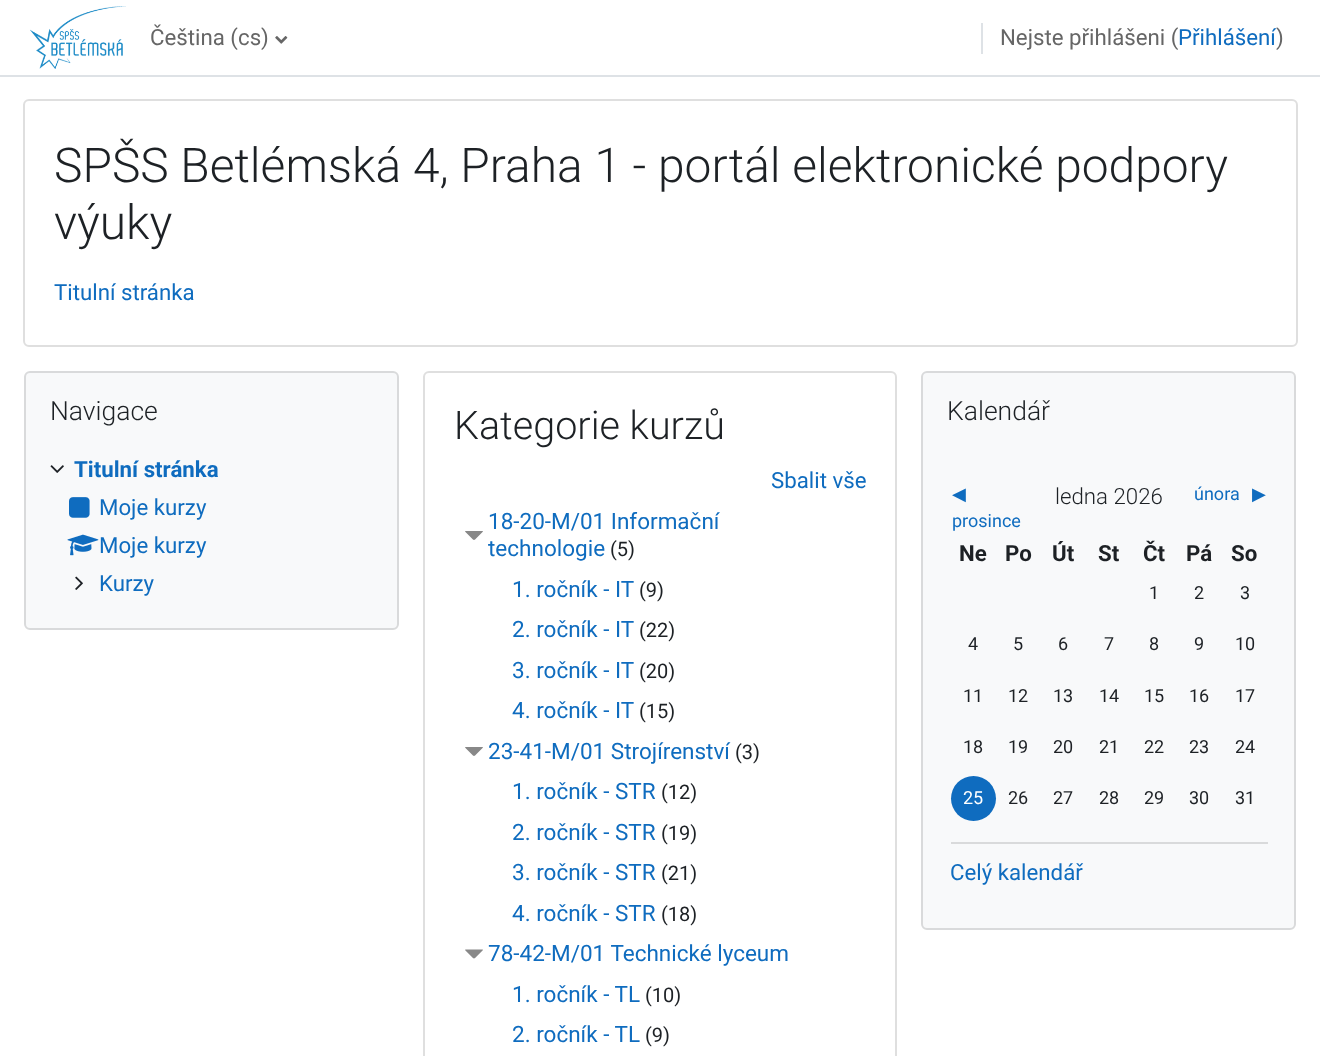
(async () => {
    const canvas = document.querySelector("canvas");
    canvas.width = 1320;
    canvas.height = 1056;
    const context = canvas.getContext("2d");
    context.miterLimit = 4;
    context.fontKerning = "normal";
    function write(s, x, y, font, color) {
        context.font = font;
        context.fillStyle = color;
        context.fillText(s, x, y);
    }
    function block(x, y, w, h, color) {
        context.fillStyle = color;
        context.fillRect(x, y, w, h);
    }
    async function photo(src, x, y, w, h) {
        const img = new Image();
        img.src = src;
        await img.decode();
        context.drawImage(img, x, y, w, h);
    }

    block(0, 0, 1320, 1056, "rgb(255, 255, 255)");
    block(0, 75, 1320, 2, "rgb(222, 226, 230)");
    await photo("media/1.png", 30, 6, 96, 63);
    write("Čeština (cs)", 150, 45, "22.25px Roboto", "rgb(102, 102, 102)");
    await photo("media/2.png", 275, 36, 13, 8);
    block(981, 23, 2, 31, "rgb(222, 226, 230)");
    write("Nejste přihlášeni (", 1000, 45, "22.25px Roboto", "rgb(102, 102, 102)");
    write("Přihlášení", 1178, 45, "22.25px Roboto", "rgb(15, 108, 191)");
    write(")", 1276, 45, "22.25px Roboto", "rgb(102, 102, 102)");
    context.beginPath();
    context.roundRect(24, 100, 1273, 246, 5);
    context.strokeStyle = "rgb(223, 223, 223)";
    context.lineWidth = 2;
    context.stroke();
    write("SPŠS Betlémská 4, Praha 1 - portál elektronické podpory", 54, 182, "300 47.9px Roboto", "rgb(29, 33, 37)");
    write("výuky", 54, 239, "300 47.9px Roboto", "rgb(29, 33, 37)");
    write("Titulní stránka", 54, 300, "22.25px Roboto", "rgb(15, 108, 191)");
    context.fillStyle = "rgb(248, 249, 250)";
    context.beginPath();
    context.roundRect(25, 372, 373, 257, 5);
    context.fill();
    context.strokeStyle = "rgb(217, 218, 219)";
    context.stroke();
    write("Navigace", 50, 420, "300 26.5px Roboto", "rgb(29, 33, 37)");
    await photo("media/3.png", 50, 465, 14, 8);
    write("Titulní stránka", 74, 477, "bold 22.25px Roboto", "rgb(15, 108, 191)");
    await photo("media/4.png", 69, 497, 21, 21);
    write("Moje kurzy", 99, 515, "22.25px Roboto", "rgb(15, 108, 191)");
    await photo("media/5.png", 67, 534, 32, 22);
    write("Moje kurzy", 99, 553, "22.25px Roboto", "rgb(15, 108, 191)");
    await photo("media/6.png", 75, 576, 8, 14);
    write("Kurzy", 99, 591, "22.25px Roboto", "rgb(15, 108, 191)");
    context.beginPath();
    context.roundRect(424, 372, 472, 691, 5);
    context.strokeStyle = "rgb(223, 223, 223)";
    context.stroke();
    write("Kategorie kurzů", 454, 439, "300 39.5px Roboto", "rgb(29, 33, 37)");
    write("Sbalit vše", 771, 488, "22.25px Roboto", "rgb(15, 108, 191)");
    await photo("media/7.png", 465, 531, 18, 9);
    write("18-20-M/01 Informační", 488, 529, "22.5px Roboto", "rgb(15, 108, 191)");
    write("technologie", 488, 556, "22.5px Roboto", "rgb(15, 108, 191)");
    write("(5)", 610, 556, "20px Roboto", "rgb(29, 33, 37)");
    write("1. ročník - IT", 512, 597, "22.5px Roboto", "rgb(15, 108, 191)");
    write("(9)", 639, 597, "20px Roboto", "rgb(29, 33, 37)");
    write("2. ročník - IT", 512, 637, "22.5px Roboto", "rgb(15, 108, 191)");
    write("(22)", 639, 637, "20px Roboto", "rgb(29, 33, 37)");
    write("3. ročník - IT", 512, 678, "22.5px Roboto", "rgb(15, 108, 191)");
    write("(20)", 639, 678, "20px Roboto", "rgb(29, 33, 37)");
    write("4. ročník - IT", 512, 718, "22.5px Roboto", "rgb(15, 108, 191)");
    write("(15)", 639, 718, "20px Roboto", "rgb(29, 33, 37)");
    await photo("media/7.png", 465, 747, 18, 9);
    write("23-41-M/01 Strojírenství", 488, 759, "22.5px Roboto", "rgb(15, 108, 191)");
    write("(3)", 735, 759, "20px Roboto", "rgb(29, 33, 37)");
    write("1. ročník - STR", 512, 799, "22.5px Roboto", "rgb(15, 108, 191)");
    write("(12)", 661, 799, "20px Roboto", "rgb(29, 33, 37)");
    write("2. ročník - STR", 512, 840, "22.5px Roboto", "rgb(15, 108, 191)");
    write("(19)", 661, 840, "20px Roboto", "rgb(29, 33, 37)");
    write("3. ročník - STR", 512, 880, "22.5px Roboto", "rgb(15, 108, 191)");
    write("(21)", 661, 880, "20px Roboto", "rgb(29, 33, 37)");
    write("4. ročník - STR", 512, 921, "22.5px Roboto", "rgb(15, 108, 191)");
    write("(18)", 661, 921, "20px Roboto", "rgb(29, 33, 37)");
    await photo("media/8.png", 465, 949, 18, 10);
    write("78-42-M/01 Technické lyceum", 488, 961, "22.5px Roboto", "rgb(15, 108, 191)");
    write("1. ročník - TL", 512, 1002, "22.5px Roboto", "rgb(15, 108, 191)");
    write("(10)", 645, 1002, "20px Roboto", "rgb(29, 33, 37)");
    write("2. ročník - TL", 512, 1042, "22.5px Roboto", "rgb(15, 108, 191)");
    write("(9)", 645, 1042, "20px Roboto", "rgb(29, 33, 37)");
    context.fillStyle = "rgb(248, 249, 250)";
    context.beginPath();
    context.roundRect(922, 372, 373, 557, 5);
    context.fill();
    context.strokeStyle = "rgb(217, 218, 219)";
    context.stroke();
    write("Kalendář", 947, 420, "300 26.5px Roboto", "rgb(29, 33, 37)");
    write("◀︎", 952, 500, "18px DejaVu Sans", "rgb(15, 108, 191)");
    write("prosince", 952, 527, "18px Roboto", "rgb(15, 108, 191)");
    write("ledna 2026", 1055, 504, "300 22.25px Roboto", "rgb(29, 33, 37)");
    write("února", 1194, 500, "18px Roboto", "rgb(15, 108, 191)");
    write("▶︎", 1252, 500, "18px DejaVu Sans", "rgb(15, 108, 191)");
    write("Ne", 959, 561, "bold 22.25px Roboto", "rgb(29, 33, 37)");
    write("Po", 1005, 561, "bold 22.25px Roboto", "rgb(29, 33, 37)");
    write("Út", 1052, 561, "bold 22.25px Roboto", "rgb(29, 33, 37)");
    write("St", 1098, 561, "bold 22.25px Roboto", "rgb(29, 33, 37)");
    write("Čt", 1143, 561, "bold 22.25px Roboto", "rgb(29, 33, 37)");
    write("Pá", 1186, 561, "bold 22.25px Roboto", "rgb(29, 33, 37)");
    write("So", 1231, 561, "bold 22.25px Roboto", "rgb(29, 33, 37)");
    write("1", 1149, 599, "18px Roboto", "rgb(29, 33, 37)");
    write("2", 1194, 599, "18px Roboto", "rgb(29, 33, 37)");
    write("3", 1240, 599, "18px Roboto", "rgb(29, 33, 37)");
    write("4", 968, 650, "18px Roboto", "rgb(29, 33, 37)");
    write("5", 1013, 650, "18px Roboto", "rgb(29, 33, 37)");
    write("6", 1058, 650, "18px Roboto", "rgb(29, 33, 37)");
    write("7", 1104, 650, "18px Roboto", "rgb(29, 33, 37)");
    write("8", 1149, 650, "18px Roboto", "rgb(29, 33, 37)");
    write("9", 1194, 650, "18px Roboto", "rgb(29, 33, 37)");
    write("10", 1235, 650, "18px Roboto", "rgb(29, 33, 37)");
    write("11", 963, 702, "18px Roboto", "rgb(29, 33, 37)");
    write("12", 1008, 702, "18px Roboto", "rgb(29, 33, 37)");
    write("13", 1053, 702, "18px Roboto", "rgb(29, 33, 37)");
    write("14", 1099, 702, "18px Roboto", "rgb(29, 33, 37)");
    write("15", 1144, 702, "18px Roboto", "rgb(29, 33, 37)");
    write("16", 1189, 702, "18px Roboto", "rgb(29, 33, 37)");
    write("17", 1235, 702, "18px Roboto", "rgb(29, 33, 37)");
    write("18", 963, 753, "18px Roboto", "rgb(29, 33, 37)");
    write("19", 1008, 753, "18px Roboto", "rgb(29, 33, 37)");
    write("20", 1053, 753, "18px Roboto", "rgb(29, 33, 37)");
    write("21", 1099, 753, "18px Roboto", "rgb(29, 33, 37)");
    write("22", 1144, 753, "18px Roboto", "rgb(29, 33, 37)");
    write("23", 1189, 753, "18px Roboto", "rgb(29, 33, 37)");
    write("24", 1235, 753, "18px Roboto", "rgb(29, 33, 37)");
    context.fillStyle = "rgb(15, 108, 191)";
    context.beginPath();
    context.arc(973.5, 798.5, 22.5, 0, Math.PI * 2);
    context.fill();
    write("25", 963, 804, "18px Roboto", "rgb(255, 255, 255)");
    write("26", 1008, 804, "18px Roboto", "rgb(29, 33, 37)");
    write("27", 1053, 804, "18px Roboto", "rgb(29, 33, 37)");
    write("28", 1099, 804, "18px Roboto", "rgb(29, 33, 37)");
    write("29", 1144, 804, "18px Roboto", "rgb(29, 33, 37)");
    write("30", 1189, 804, "18px Roboto", "rgb(29, 33, 37)");
    write("31", 1235, 804, "18px Roboto", "rgb(29, 33, 37)");
    block(951, 842, 317, 2, "rgb(217, 218, 219)");
    write("Celý kalendář", 950, 880, "22.25px Roboto", "rgb(15, 108, 191)");
})();
